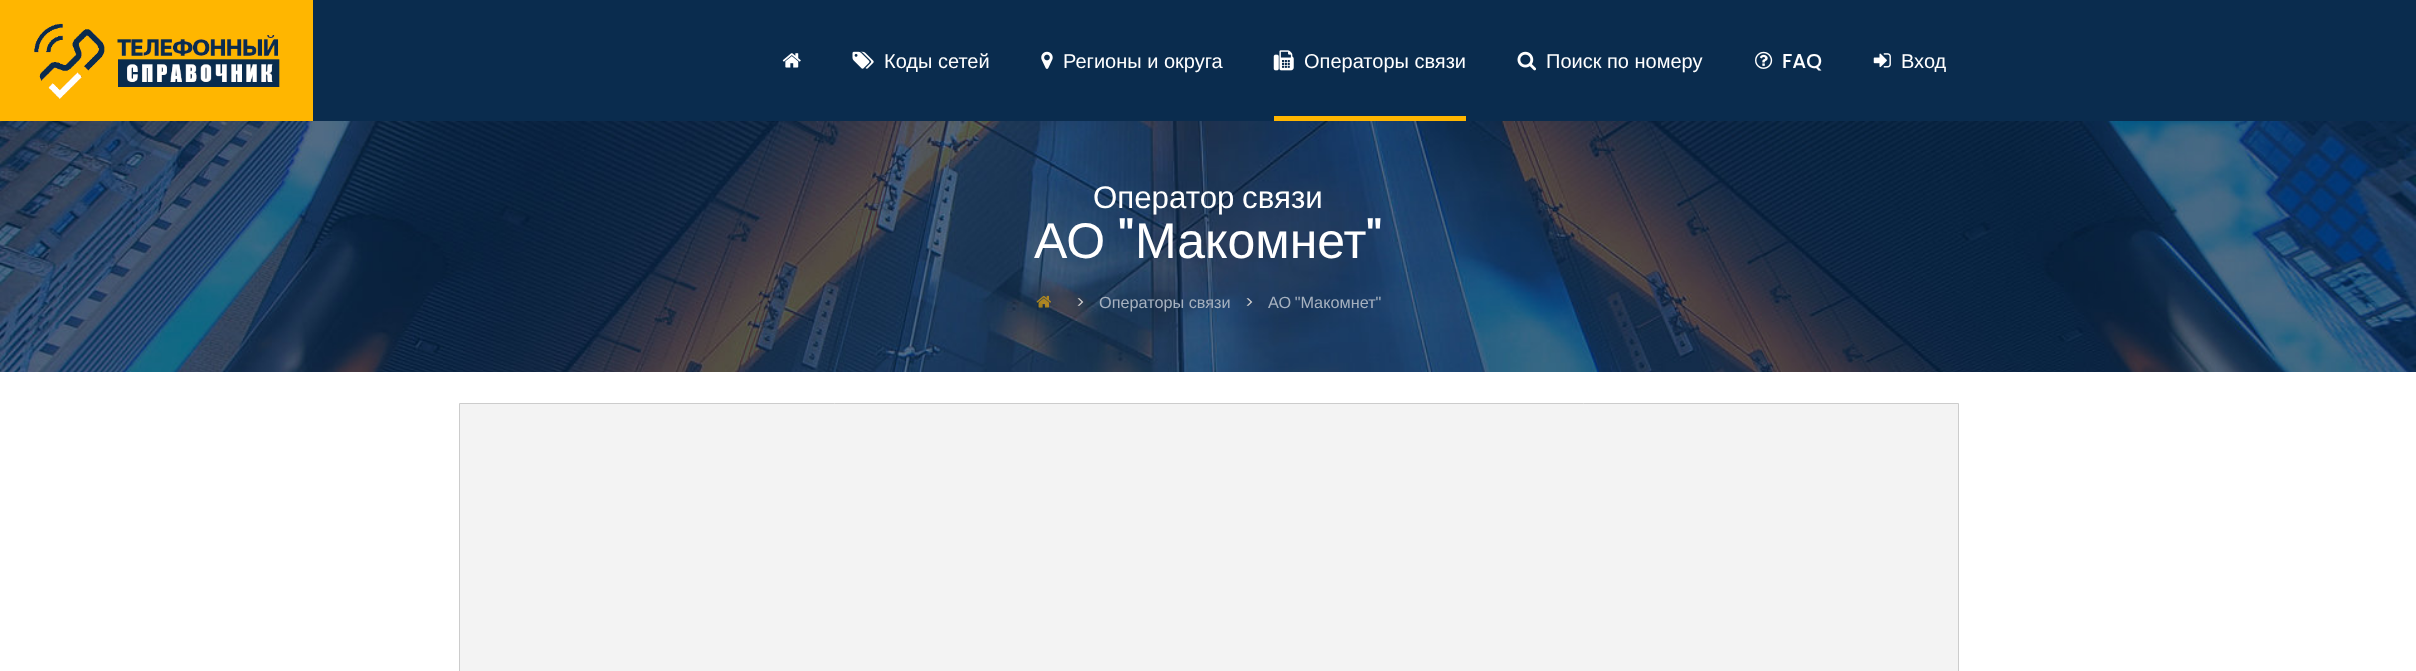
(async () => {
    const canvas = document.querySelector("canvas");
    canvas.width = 2416;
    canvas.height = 671;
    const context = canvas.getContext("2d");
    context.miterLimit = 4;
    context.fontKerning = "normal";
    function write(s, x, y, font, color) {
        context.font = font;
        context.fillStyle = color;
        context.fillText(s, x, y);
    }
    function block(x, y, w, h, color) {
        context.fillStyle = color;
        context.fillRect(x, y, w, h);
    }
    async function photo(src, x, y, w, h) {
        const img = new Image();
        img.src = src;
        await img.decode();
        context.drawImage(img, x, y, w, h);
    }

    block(0, 0, 2416, 671, "rgb(255, 255, 255)");
    block(313, 0, 2103, 121, "rgb(10, 44, 78)");
    block(0, 0, 313, 121, "rgb(255, 182, 0)");
    await photo("media/1.png", 34, 23, 246, 76);
    await photo("media/2.png", 782, 53, 19, 15);
    await photo("media/3.png", 852, 51, 22, 18);
    write("Коды сетей", 884, 68, "20px Liberation Sans", "rgb(255, 255, 255)");
    await photo("media/4.png", 1041, 51, 12, 18);
    write("Регионы и округа", 1063, 68, "20px Liberation Sans", "rgb(255, 255, 255)");
    await photo("media/5.png", 1273, 50, 21, 21);
    write("Операторы связи", 1304, 68, "20px Liberation Sans", "rgb(255, 255, 255)");
    block(1274, 116, 192, 5, "rgb(255, 182, 0)");
    await photo("media/6.png", 1517, 51, 19, 20);
    write("Поиск по номеру", 1546, 68, "20px Liberation Sans", "rgb(255, 255, 255)");
    await photo("media/7.png", 1755, 51, 18, 18);
    write("FAQ", 1782, 68, "500 20px Poppins", "rgb(255, 255, 255)");
    await photo("media/8.png", 1873, 53, 18, 15);
    write("Вход", 1901, 68, "20px Liberation Sans", "rgb(255, 255, 255)");
    await photo("media/9.png", 0, 121, 2416, 251);
    context.wordSpacing = "-1px";
    write("Оператор связи", 1093, 208, "31.25px Liberation Sans", "rgb(255, 255, 255)");
    context.wordSpacing = "0px";
    write("АО", 1034, 258, "50px Liberation Sans", "rgb(255, 255, 255)");
    write("\"", 1118, 258, "500 50px Poppins", "rgb(255, 255, 255)");
    write("Макомнет", 1135, 258, "50px Liberation Sans", "rgb(255, 255, 255)");
    write("\"", 1366, 258, "500 50px Poppins", "rgb(255, 255, 255)");
    await photo("media/10.png", 1036, 295, 15, 13);
    write(">", 1076, 308, "16.25px Poppins", "rgb(204, 204, 204)");
    write("Операторы связи", 1099, 308, "16.25px Liberation Sans", "rgb(166, 177, 191)");
    write(">", 1245, 308, "16.25px Poppins", "rgb(204, 204, 204)");
    context.wordSpacing = "-1px";
    write("АО \"Макомнет\"", 1268, 308, "16.25px Liberation Sans", "rgb(166, 177, 191)");
    context.fillStyle = "rgb(243, 243, 243)";
    context.beginPath();
    context.rect(459.5, 403.5, 1499, 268);
    context.fill();
    context.strokeStyle = "rgb(204, 204, 204)";
    context.stroke();
})();
